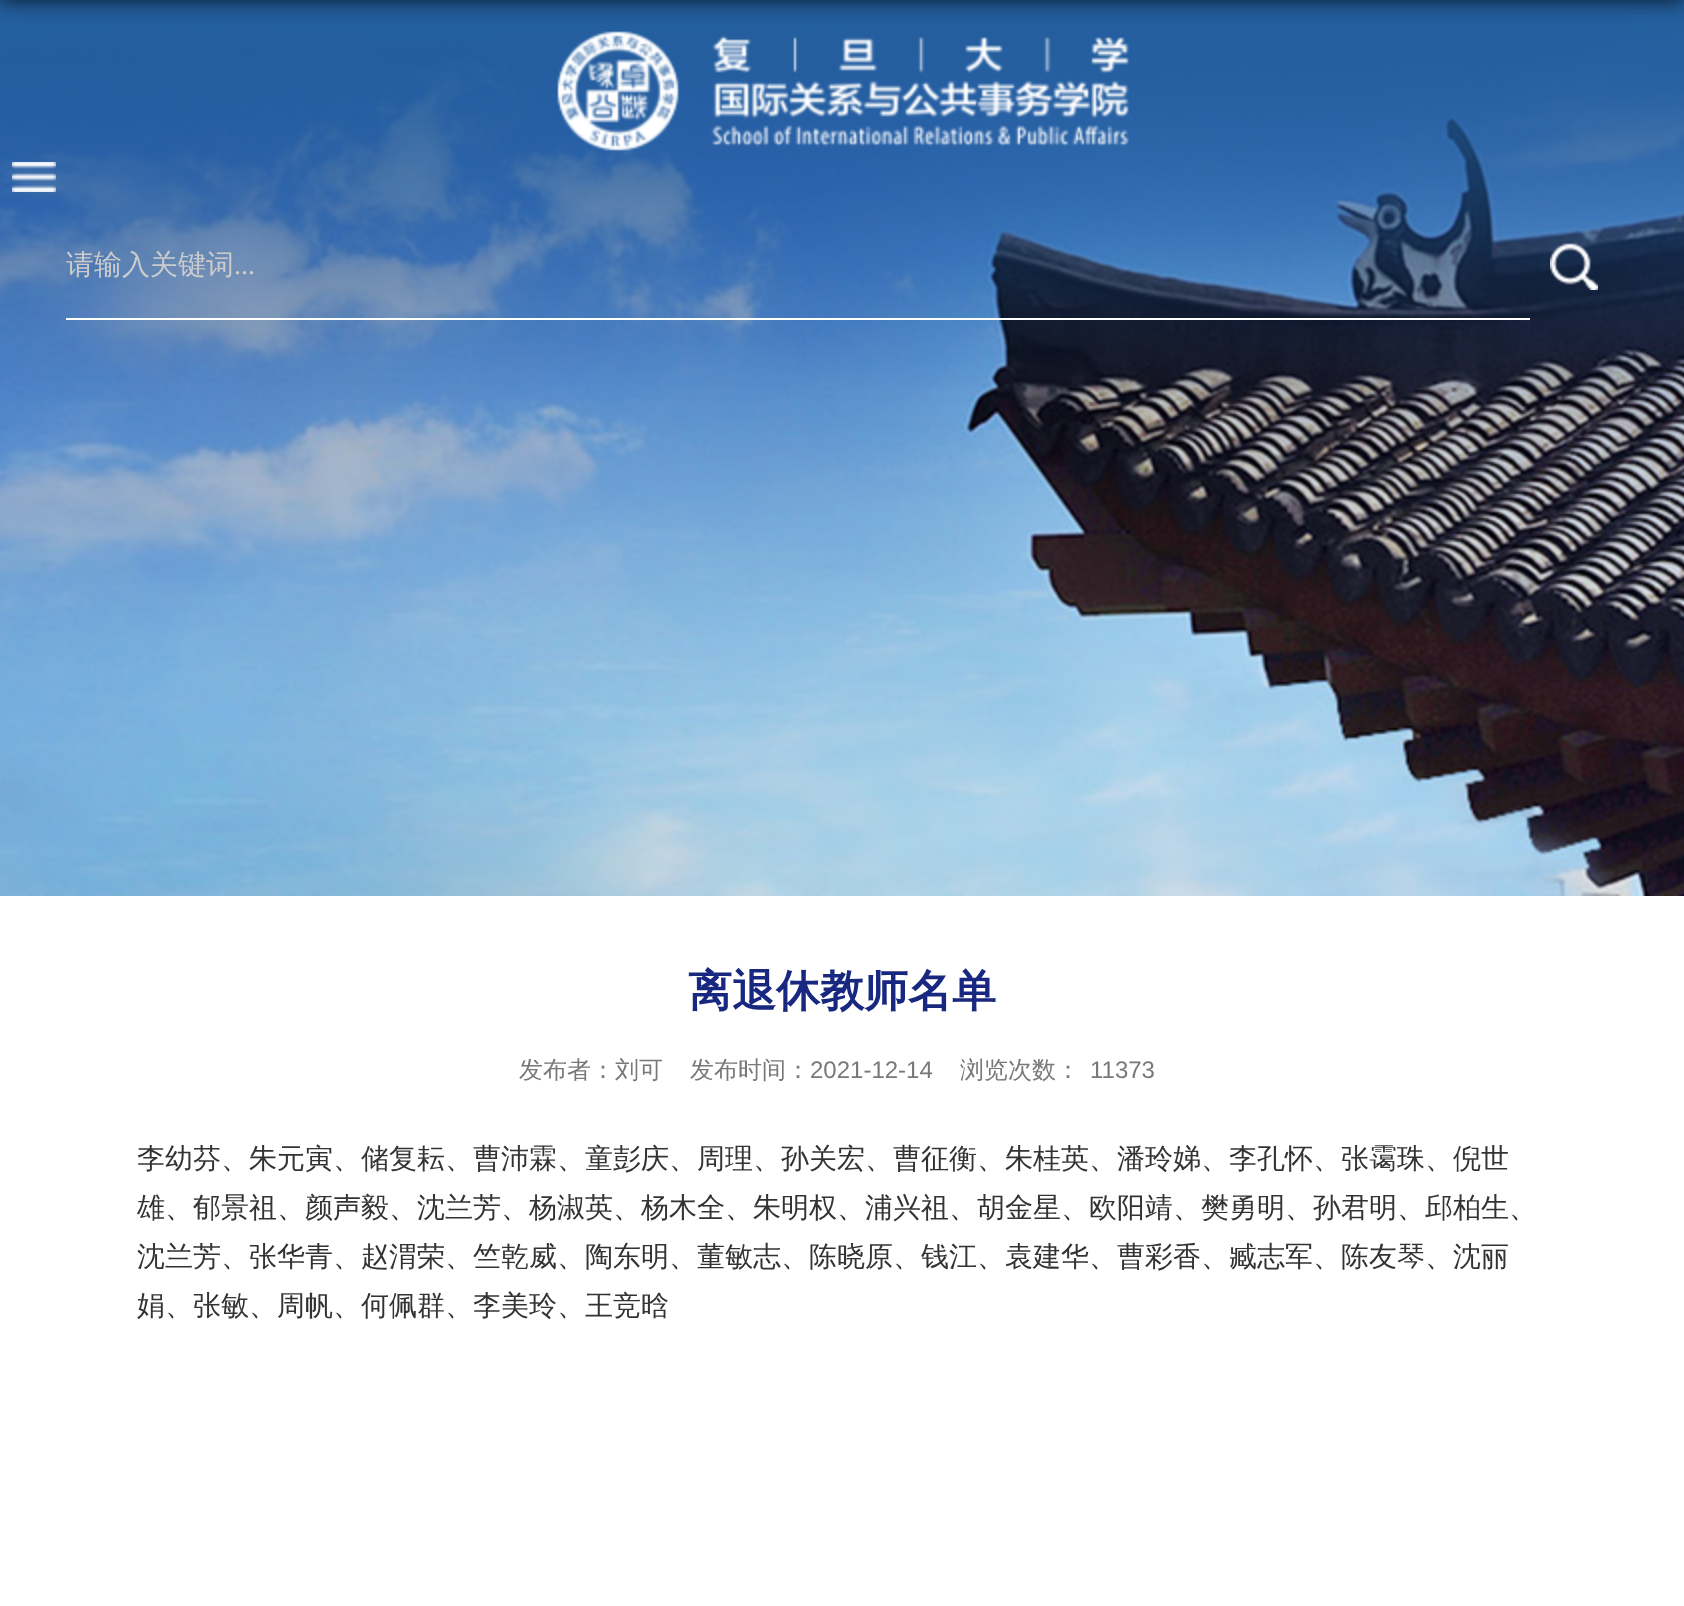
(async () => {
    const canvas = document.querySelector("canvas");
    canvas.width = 1684;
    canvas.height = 1606;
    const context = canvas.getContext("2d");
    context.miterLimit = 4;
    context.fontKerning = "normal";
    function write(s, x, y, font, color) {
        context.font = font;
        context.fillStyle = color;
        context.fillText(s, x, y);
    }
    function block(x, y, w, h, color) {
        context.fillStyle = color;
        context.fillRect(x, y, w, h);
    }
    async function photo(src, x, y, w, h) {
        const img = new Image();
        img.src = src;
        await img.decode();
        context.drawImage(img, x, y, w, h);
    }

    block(0, 0, 1684, 1606, "rgb(255, 255, 255)");
    await photo("media/1.png", 0, 0, 1684, 896);
    context.fillStyle = "rgba(0, 0, 0, 0.8)";
    context.filter = "blur(10px)";
    context.beginPath();
    context.rect(0, -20, 1684, 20);
    context.fill();
    context.filter = "none";
    await photo("media/2.png", 557, 31, 572, 120);
    await photo("media/3.png", 12, 162, 44, 30);
    block(66, 318, 1464, 2, "rgb(255, 255, 255)");
    write("请输入关键词", 66, 274, "500 28px WenQuanYi Zen Hei", "rgb(204, 204, 204)");
    write("...", 234, 274, "28px Liberation Serif", "rgb(204, 204, 204)");
    await photo("media/4.png", 1550, 243, 48, 47);
    write("离退休教师名单", 688, 1006, "bold 44px WenQuanYi Zen Hei", "rgb(24, 40, 128)");
    write("发布者：刘可", 519, 1078, "500 24px WenQuanYi Zen Hei", "rgb(120, 120, 120)");
    write("发布时间：", 690, 1078, "500 24px WenQuanYi Zen Hei", "rgb(120, 120, 120)");
    write("2021-12-14", 810, 1078, "24px Liberation Sans", "rgb(120, 120, 120)");
    write("浏览次数：", 960, 1078, "500 24px WenQuanYi Zen Hei", "rgb(120, 120, 120)");
    write("11373", 1090, 1078, "24px Liberation Sans", "rgb(120, 120, 120)");
    write("李幼芬、朱元寅、储复耘、曹沛霖、童彭庆、周理、孙关宏、曹征衡、朱桂英、潘玲娣、李孔怀、张霭珠、倪世", 137, 1168, "500 28px WenQuanYi Zen Hei", "rgb(51, 51, 51)");
    write("雄、郁景祖、颜声毅、沈兰芳、杨淑英、杨木全、朱明权、浦兴祖、胡金星、欧阳靖、樊勇明、孙君明、邱柏生、", 137, 1217, "500 28px WenQuanYi Zen Hei", "rgb(51, 51, 51)");
    write("沈兰芳、张华青、赵渭荣、竺乾威、陶东明、董敏志、陈晓原、钱江、袁建华、曹彩香、臧志军、陈友琴、沈丽", 137, 1266, "500 28px WenQuanYi Zen Hei", "rgb(51, 51, 51)");
    write("娟、张敏、周帆、何佩群、李美玲、王竞晗", 137, 1315, "500 28px WenQuanYi Zen Hei", "rgb(51, 51, 51)");
})();
